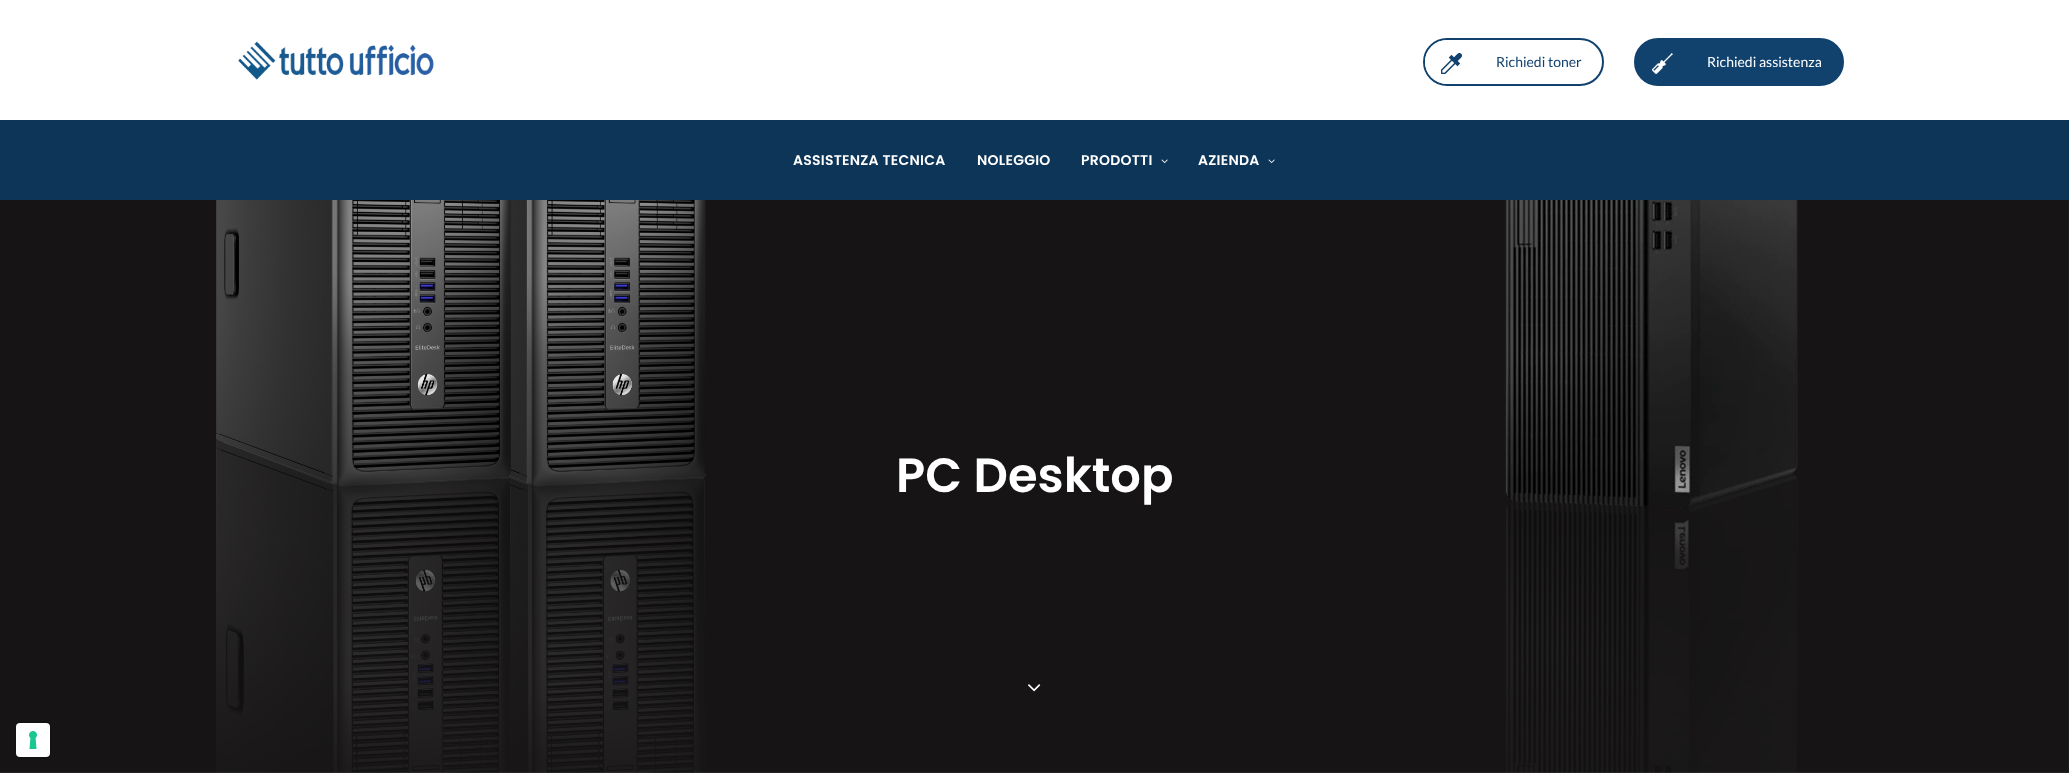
(async () => {
    const canvas = document.querySelector("canvas");
    canvas.width = 2069;
    canvas.height = 773;
    const context = canvas.getContext("2d");
    context.miterLimit = 4;
    context.fontKerning = "normal";
    function write(s, x, y, font, color) {
        context.font = font;
        context.fillStyle = color;
        context.fillText(s, x, y);
    }
    function block(x, y, w, h, color) {
        context.fillStyle = color;
        context.fillRect(x, y, w, h);
    }
    function card(x, y, w, h, r, color) {
        context.fillStyle = color;
        context.beginPath();
        context.roundRect(x, y, w, h, r);
        context.fill();
    }
    async function photo(src, x, y, w, h) {
        const img = new Image();
        img.src = src;
        await img.decode();
        context.drawImage(img, x, y, w, h);
    }

    block(0, 0, 2069, 773, "rgb(255, 255, 255)");
    await photo("media/1.png", 238, 41, 196, 39);
    context.beginPath();
    context.roundRect(1424, 39, 179, 46, 23);
    context.strokeStyle = "rgb(17, 66, 110)";
    context.lineWidth = 2;
    context.stroke();
    context.beginPath();
    context.roundRect(1425, 40, 51, 44, [22, 0, 0, 22]);
    context.fill();
    await photo("media/2.png", 1441, 53, 21, 21);
    write("Richiedi toner", 1496, 67, "14px Lato", "rgb(17, 66, 110)");
    context.beginPath();
    context.roundRect(1635, 39, 208, 46, 23);
    context.fill();
    context.stroke();
    await photo("media/3.png", 1652, 53, 21, 21);
    write("Richiedi assistenza", 1707, 67, "14px Lato", "rgb(255, 255, 255)");
    block(0, 120, 2069, 80, "rgb(13, 53, 88)");
    context.letterSpacing = "0.25px";
    write("ASSISTENZA TECNICA", 793, 165, "600 14px Poppins", "rgb(255, 255, 255)");
    write("NOLEGGIO", 977, 165, "600 14px Poppins", "rgb(255, 255, 255)");
    write("PRODOTTI", 1081, 165, "600 14px Poppins", "rgb(255, 255, 255)");
    await photo("media/4.png", 1161, 159, 7, 5);
    write("AZIENDA", 1198, 165, "600 14px Poppins", "rgb(255, 255, 255)");
    await photo("media/5.png", 1268, 159, 7, 5);
    await photo("media/6.png", 0, 200, 2069, 573);
    context.letterSpacing = "0px";
    write("PC Desktop", 896, 492, "600 48px Poppins", "rgb(255, 255, 255)");
    await photo("media/7.png", 1028, 684, 13, 8);
    context.beginPath();
    context.roundRect(15.5, 722.5, 35, 35, 4.5);
    context.strokeStyle = "rgb(19, 17, 18)";
    context.lineWidth = 1;
    context.stroke();
    card(16, 723, 34, 34, 4, "rgb(255, 255, 255)");
    await photo("media/8.png", 29, 731, 8, 18);
})();
